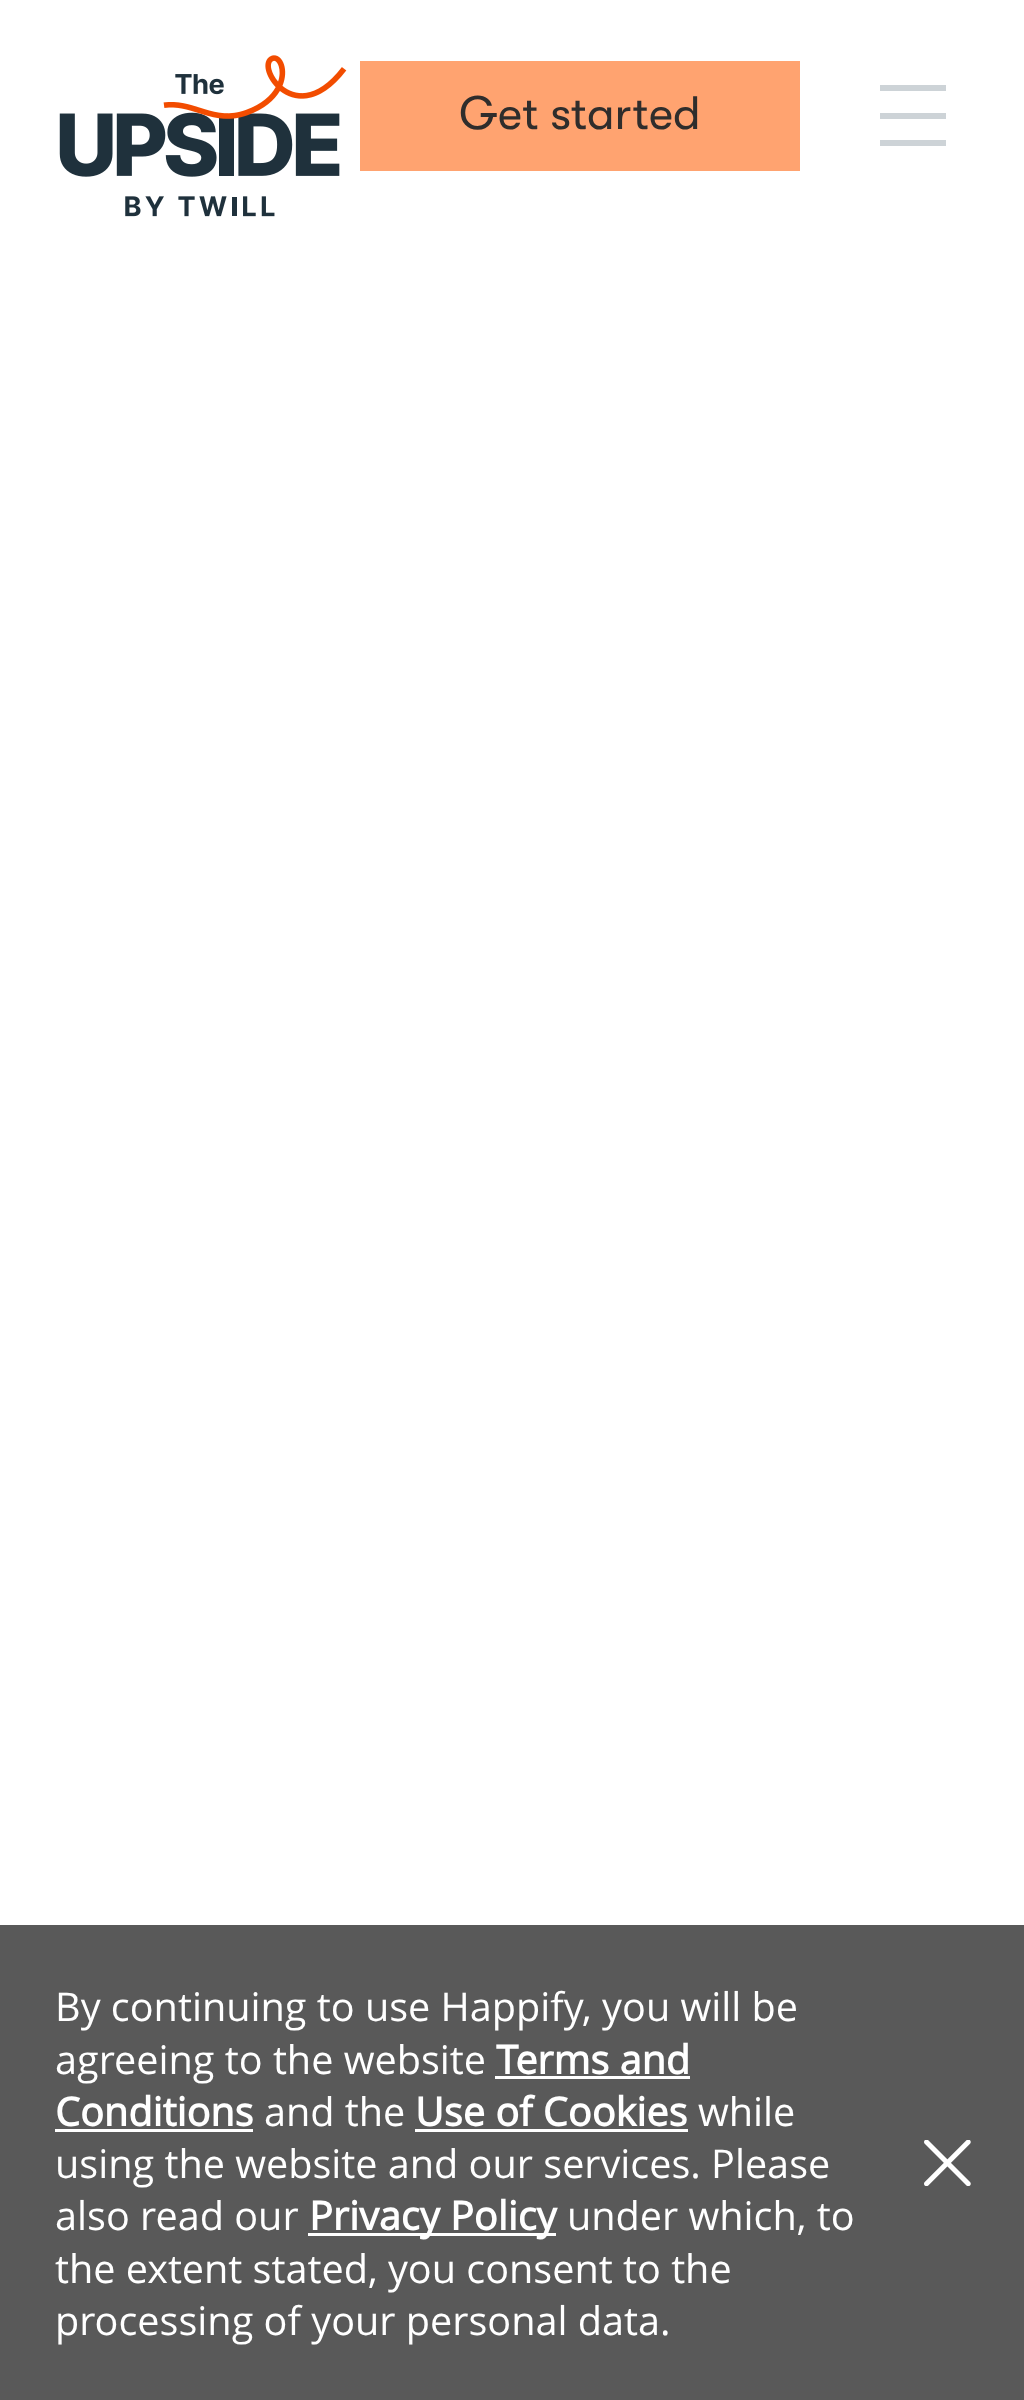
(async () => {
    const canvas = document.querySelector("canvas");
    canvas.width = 1024;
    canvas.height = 2400;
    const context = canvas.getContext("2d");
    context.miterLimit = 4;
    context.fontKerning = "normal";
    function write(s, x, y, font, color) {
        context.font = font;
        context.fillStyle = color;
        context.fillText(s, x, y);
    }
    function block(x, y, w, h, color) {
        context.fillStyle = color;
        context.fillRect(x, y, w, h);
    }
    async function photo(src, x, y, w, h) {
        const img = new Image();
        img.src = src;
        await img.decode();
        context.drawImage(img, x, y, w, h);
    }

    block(0, 0, 1024, 2400, "rgb(255, 255, 255)");
    await photo("media/1.png", 59, 55, 288, 162);
    block(360, 61, 440, 110, "rgb(255, 163, 112)");
    write("Get started", 459, 129, "46.75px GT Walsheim", "rgb(47, 45, 44)");
    block(880, 85, 66, 6, "rgb(205, 211, 215)");
    block(880, 113, 66, 6, "rgb(205, 211, 215)");
    block(880, 140, 66, 6, "rgb(205, 211, 215)");
    block(0, 1925, 1024, 475, "rgb(89, 89, 89)");
    write("By continuing to use Happify, you will be", 55, 2021, "39.6px Open Sans", "rgb(255, 255, 255)");
    write("agreeing to the website", 55, 2074, "39.6px Open Sans", "rgb(255, 255, 255)");
    write("Terms and", 496, 2074, "bold 39.6px Open Sans", "rgb(255, 255, 255)");
    block(495, 2076, 195, 3, "rgb(255, 255, 255)");
    write("Conditions", 55, 2126, "bold 39.6px Open Sans", "rgb(255, 255, 255)");
    block(55, 2129, 198, 3, "rgb(255, 255, 255)");
    write("and the", 264, 2126, "39.6px Open Sans", "rgb(255, 255, 255)");
    write("Use of Cookies", 415, 2126, "bold 39.6px Open Sans", "rgb(255, 255, 255)");
    block(415, 2129, 273, 3, "rgb(255, 255, 255)");
    write("while", 698, 2126, "39.6px Open Sans", "rgb(255, 255, 255)");
    write("using the website and our services. Please", 55, 2178, "39.6px Open Sans", "rgb(255, 255, 255)");
    write("also read our", 55, 2230, "39.6px Open Sans", "rgb(255, 255, 255)");
    block(308, 2233, 248, 3, "rgb(255, 255, 255)");
    write("Privacy Policy", 309, 2230, "bold 39.6px Open Sans", "rgb(255, 255, 255)");
    write("under which, to", 567, 2230, "39.6px Open Sans", "rgb(255, 255, 255)");
    write("the extent stated, you consent to the", 55, 2283, "39.6px Open Sans", "rgb(255, 255, 255)");
    write("processing of your personal data.", 55, 2335, "39.6px Open Sans", "rgb(255, 255, 255)");
    await photo("media/2.png", 924, 2140, 47, 46);
})();
